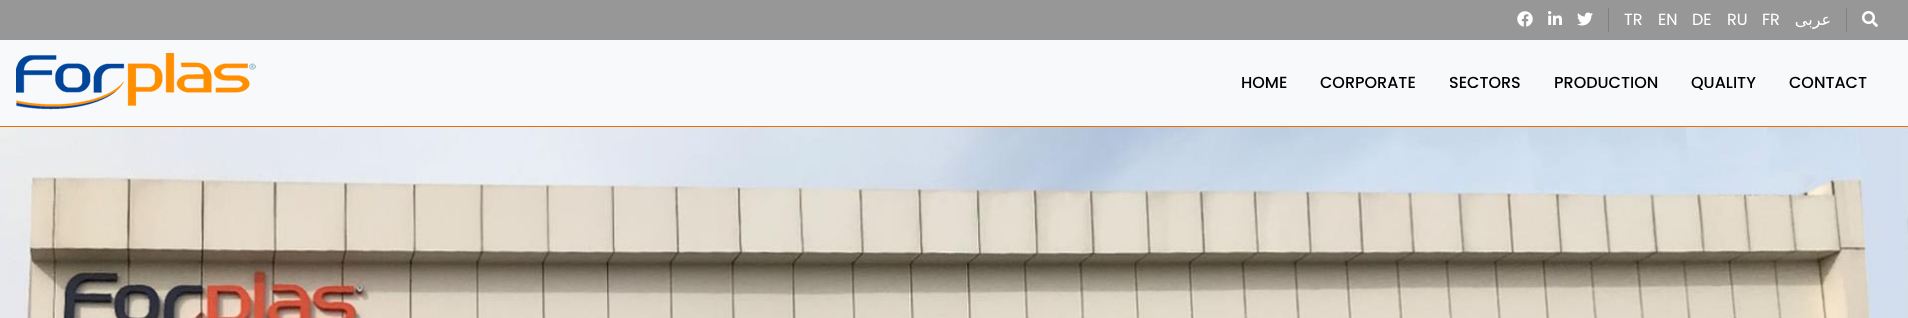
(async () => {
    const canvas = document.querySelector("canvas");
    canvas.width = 1908;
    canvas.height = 318;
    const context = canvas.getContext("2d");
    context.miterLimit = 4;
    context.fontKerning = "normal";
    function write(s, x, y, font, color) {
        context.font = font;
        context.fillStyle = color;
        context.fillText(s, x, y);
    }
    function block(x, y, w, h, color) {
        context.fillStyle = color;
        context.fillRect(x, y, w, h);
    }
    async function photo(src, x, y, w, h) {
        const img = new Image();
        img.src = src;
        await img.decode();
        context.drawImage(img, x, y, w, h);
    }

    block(0, 0, 1908, 318, "rgb(255, 255, 255)");
    block(0, 0, 1908, 40, "rgb(151, 151, 151)");
    block(1608, 8, 1, 24, "rgb(128, 128, 128)");
    await photo("media/1.png", 1517, 11, 16, 16);
    await photo("media/2.png", 1548, 11, 14, 14);
    await photo("media/3.png", 1577, 12, 16, 14);
    block(1846, 8, 1, 24, "rgb(128, 128, 128)");
    write("TR", 1624, 25, "16px Poppins", "rgb(255, 255, 255)");
    write("EN", 1658, 25, "16px Poppins", "rgb(255, 255, 255)");
    write("DE", 1692, 25, "16px Poppins", "rgb(255, 255, 255)");
    write("RU", 1727, 25, "16px Poppins", "rgb(255, 255, 255)");
    write("FR", 1762, 25, "16px Poppins", "rgb(255, 255, 255)");
    context.direction = "rtl";
    write("عربى", 1831, 25, "16px DejaVu Sans", "rgb(255, 255, 255)");
    await photo("media/4.png", 1862, 11, 16, 16);
    block(0, 40, 1908, 86, "rgb(248, 249, 250)");
    block(0, 126, 1908, 1, "rgb(236, 110, 0)");
    await photo("media/5.png", 16, 53, 240, 57);
    context.direction = "ltr";
    write("HOME", 1241, 88, "500 16px Poppins", "rgb(0, 0, 0)");
    write("CORPORATE", 1320, 88, "500 16px Poppins", "rgb(0, 0, 0)");
    write("SECTORS", 1449, 88, "500 16px Poppins", "rgb(0, 0, 0)");
    write("PRODUCTION", 1554, 88, "500 16px Poppins", "rgb(0, 0, 0)");
    write("QUALITY", 1691, 88, "500 16px Poppins", "rgb(0, 0, 0)");
    write("CONTACT", 1789, 88, "500 16px Poppins", "rgb(0, 0, 0)");
    await photo("media/6.png", 0, 127, 1908, 191);
})();
